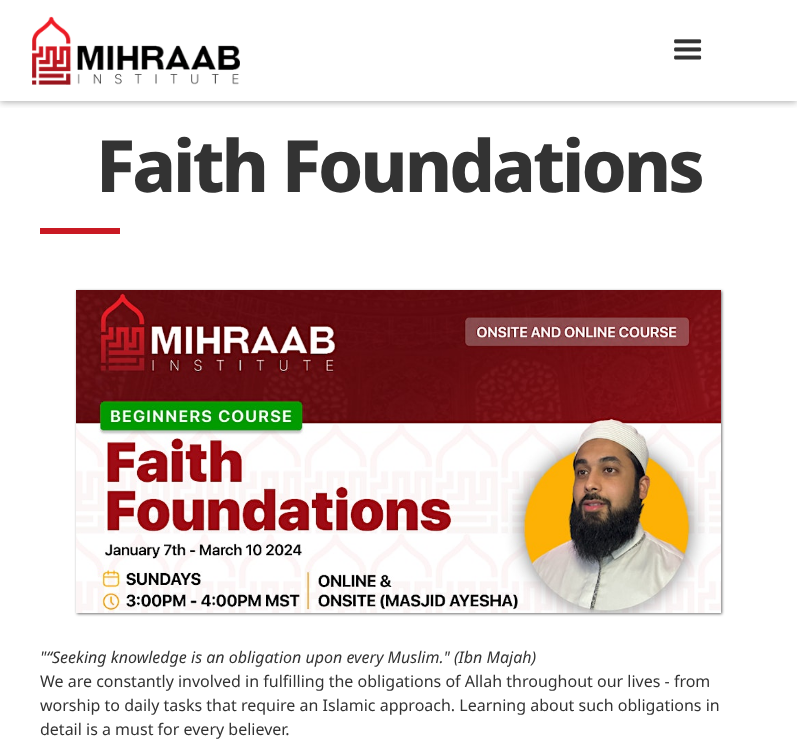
(async () => {
    const canvas = document.querySelector("canvas");
    canvas.width = 797;
    canvas.height = 746;
    const context = canvas.getContext("2d");
    context.miterLimit = 4;
    context.fontKerning = "normal";
    function write(s, x, y, font, color) {
        context.font = font;
        context.fillStyle = color;
        context.fillText(s, x, y);
    }
    function block(x, y, w, h, color) {
        context.fillStyle = color;
        context.fillRect(x, y, w, h);
    }
    async function photo(src, x, y, w, h) {
        const img = new Image();
        img.src = src;
        await img.decode();
        context.drawImage(img, x, y, w, h);
    }

    block(0, 0, 797, 746, "rgb(255, 255, 255)");
    context.save();
    context.beginPath();
    context.rect(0, 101, 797, 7);
    context.clip();
    context.fillStyle = "rgba(51, 51, 51, 0.42)";
    context.filter = "blur(3.5px)";
    context.beginPath();
    context.rect(0, 1, 797, 101);
    context.fill();
    context.filter = "none";
    context.restore();
    await photo("media/1.png", 32, 16, 208, 69);
    await photo("media/2.png", 674, 39, 28, 21);
    context.letterSpacing = "-3px";
    write("Faith Foundations", 96, 192, "800 72px Noto Sans", "rgb(51, 51, 51)");
    block(40, 228, 80, 6, "rgb(201, 25, 35)");
    context.fillStyle = "rgba(0, 0, 0, 0.56)";
    context.filter = "blur(1.5px)";
    context.beginPath();
    context.rect(77, 291, 645, 323);
    context.fill();
    context.filter = "none";
    await photo("media/3.png", 76, 290, 645, 323);
    context.letterSpacing = "0px";
    write("\"“Seeking knowledge is an obligation upon every Muslim.\" (Ibn Majah)‍", 40, 663, "italic 16px Noto Sans", "rgb(51, 51, 51)");
    write("We are constantly involved in fulfilling the obligations of Allah throughout our lives - from", 40, 687, "16px Noto Sans", "rgb(51, 51, 51)");
    write("worship to daily tasks that require an Islamic approach. Learning about such obligations in", 40, 711, "16px Noto Sans", "rgb(51, 51, 51)");
    write("detail is a must for every believer.", 40, 735, "16px Noto Sans", "rgb(51, 51, 51)");
})();
